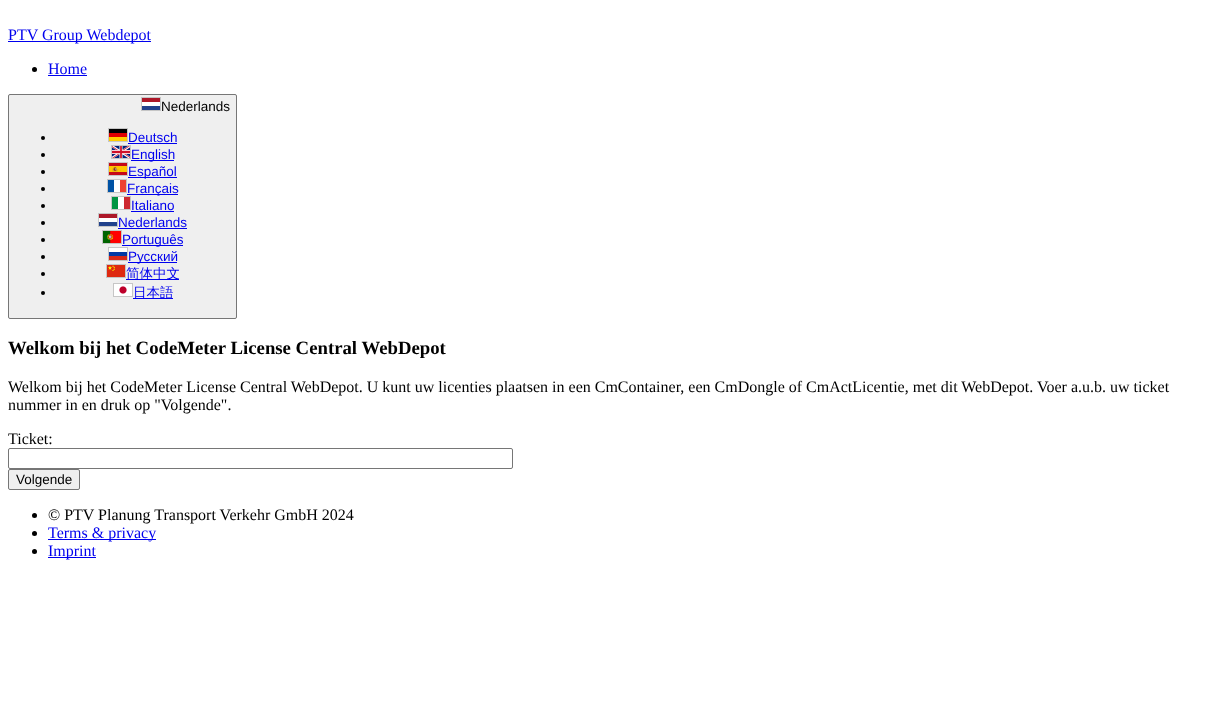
(async () => {
    const canvas = document.querySelector("canvas");
    canvas.width = 1218;
    canvas.height = 719;
    const context = canvas.getContext("2d");
    context.miterLimit = 4;
    context.fontKerning = "normal";
    function write(s, x, y, font, color) {
        context.font = font;
        context.fillStyle = color;
        context.fillText(s, x, y);
    }
    function block(x, y, w, h, color) {
        context.fillStyle = color;
        context.fillRect(x, y, w, h);
    }
    async function photo(src, x, y, w, h) {
        const img = new Image();
        img.src = src;
        await img.decode();
        context.drawImage(img, x, y, w, h);
    }

    block(0, 0, 1218, 719, "rgb(255, 255, 255)");
    block(8, 41, 143, 1, "rgb(0, 0, 238)");
    write("PTV Group Webdepot", 8, 40, "16px Liberation Serif", "rgb(0, 0, 238)");
    context.fillStyle = "rgb(0, 0, 0)";
    context.beginPath();
    context.arc(34.5, 69.5, 2.5, 0, Math.PI * 2);
    context.fill();
    write("Home", 48, 74, "16px Liberation Serif", "rgb(0, 0, 238)");
    block(48, 75, 39, 1, "rgb(0, 0, 238)");
    context.fillStyle = "rgb(239, 239, 239)";
    context.beginPath();
    context.roundRect(8.5, 94.5, 228, 224, 1.5);
    context.fill();
    context.strokeStyle = "rgb(118, 118, 118)";
    context.stroke();
    await photo("media/1.png", 141, 97, 20, 14);
    write("Nederlands", 161, 111, "13.5px Liberation Sans", "rgb(0, 0, 0)");
    context.beginPath();
    context.arc(43, 138, 2, 0, Math.PI * 2);
    context.fill();
    await photo("media/2.png", 108, 128, 20, 14);
    write("Deutsch", 128, 142, "13.5px Liberation Sans", "rgb(0, 0, 238)");
    block(128, 143, 49, 1, "rgb(0, 0, 238)");
    context.fillStyle = "rgb(0, 0, 0)";
    context.beginPath();
    context.arc(43, 155, 2, 0, Math.PI * 2);
    context.fill();
    await photo("media/3.png", 111, 145, 20, 14);
    block(131, 160, 43, 1, "rgb(0, 0, 238)");
    write("English", 131, 159, "13.5px Liberation Sans", "rgb(0, 0, 238)");
    context.fillStyle = "rgb(0, 0, 0)";
    context.beginPath();
    context.arc(43, 172, 2, 0, Math.PI * 2);
    context.fill();
    await photo("media/4.png", 108, 162, 20, 14);
    block(128, 177, 49, 1, "rgb(0, 0, 238)");
    write("Español", 128, 176, "13.5px Liberation Sans", "rgb(0, 0, 238)");
    context.fillStyle = "rgb(0, 0, 0)";
    context.beginPath();
    context.arc(43, 189, 2, 0, Math.PI * 2);
    context.fill();
    await photo("media/5.png", 107, 179, 20, 14);
    block(127, 194, 51, 1, "rgb(0, 0, 238)");
    write("Français", 127, 193, "13.5px Liberation Sans", "rgb(0, 0, 238)");
    context.fillStyle = "rgb(0, 0, 0)";
    context.beginPath();
    context.arc(43, 206, 2, 0, Math.PI * 2);
    context.fill();
    await photo("media/6.png", 111, 196, 20, 14);
    write("Italiano", 131, 210, "13.5px Liberation Sans", "rgb(0, 0, 238)");
    block(131, 211, 43, 1, "rgb(0, 0, 238)");
    context.fillStyle = "rgb(0, 0, 0)";
    context.beginPath();
    context.arc(43, 223, 2, 0, Math.PI * 2);
    context.fill();
    await photo("media/1.png", 98, 213, 20, 14);
    write("Nederlands", 118, 227, "13.5px Liberation Sans", "rgb(0, 0, 238)");
    block(118, 228, 69, 1, "rgb(0, 0, 238)");
    context.fillStyle = "rgb(0, 0, 0)";
    context.beginPath();
    context.arc(43, 240, 2, 0, Math.PI * 2);
    context.fill();
    await photo("media/7.png", 102, 230, 20, 14);
    block(122, 245, 61, 1, "rgb(0, 0, 238)");
    write("Português", 122, 244, "13.5px Liberation Sans", "rgb(0, 0, 238)");
    context.fillStyle = "rgb(0, 0, 0)";
    context.beginPath();
    context.arc(43, 257, 2, 0, Math.PI * 2);
    context.fill();
    await photo("media/8.png", 108, 247, 20, 14);
    block(128, 262, 49, 1, "rgb(0, 0, 238)");
    write("Русский", 128, 261, "13.5px Liberation Sans", "rgb(0, 0, 238)");
    context.fillStyle = "rgb(0, 0, 0)";
    context.beginPath();
    context.arc(43, 274, 2, 0, Math.PI * 2);
    context.fill();
    await photo("media/9.png", 106, 264, 20, 14);
    block(126, 279, 53, 1, "rgb(0, 0, 238)");
    write("简体中文", 126, 278, "500 13.5px WenQuanYi Zen Hei", "rgb(0, 0, 238)");
    context.fillStyle = "rgb(0, 0, 0)";
    context.beginPath();
    context.arc(43, 293, 2, 0, Math.PI * 2);
    context.fill();
    await photo("media/10.png", 113, 283, 20, 14);
    block(133, 298, 40, 1, "rgb(0, 0, 238)");
    write("日本語", 133, 297, "500 13.5px WenQuanYi Zen Hei", "rgb(0, 0, 238)");
    write("Welkom bij het CodeMeter License Central WebDepot", 8, 354, "bold 18.75px Liberation Serif", "rgb(0, 0, 0)");
    write("Welkom bij het CodeMeter License Central WebDepot. U kunt uw licenties plaatsen in een CmContainer, een CmDongle of CmActLicentie, met dit WebDepot. Voer a.u.b. uw ticket", 8, 392, "16px Liberation Serif", "rgb(0, 0, 0)");
    write("nummer in en druk op \"Volgende\".", 8, 410, "16px Liberation Serif", "rgb(0, 0, 0)");
    write("Ticket:", 8, 444, "16px Liberation Serif", "rgb(0, 0, 0)");
    context.beginPath();
    context.roundRect(8.5, 448.5, 504, 20, 1.5);
    context.stroke();
    context.fillStyle = "rgb(239, 239, 239)";
    context.beginPath();
    context.roundRect(8.5, 469.5, 71, 20, 1.5);
    context.fill();
    context.stroke();
    write("Volgende", 16, 484, "13.5px Liberation Sans", "rgb(0, 0, 0)");
    context.beginPath();
    context.arc(34.5, 515.5, 2.5, 0, Math.PI * 2);
    context.fill();
    write("© PTV Planung Transport Verkehr GmbH 2024", 48, 520, "16px Liberation Serif", "rgb(0, 0, 0)");
    context.beginPath();
    context.arc(34.5, 533.5, 2.5, 0, Math.PI * 2);
    context.fill();
    block(48, 539, 108, 1, "rgb(0, 0, 238)");
    write("Terms & privacy", 48, 538, "16px Liberation Serif", "rgb(0, 0, 238)");
    context.fillStyle = "rgb(0, 0, 0)";
    context.beginPath();
    context.arc(34.5, 551.5, 2.5, 0, Math.PI * 2);
    context.fill();
    block(48, 557, 48, 1, "rgb(0, 0, 238)");
    write("Imprint", 48, 556, "16px Liberation Serif", "rgb(0, 0, 238)");
})();
